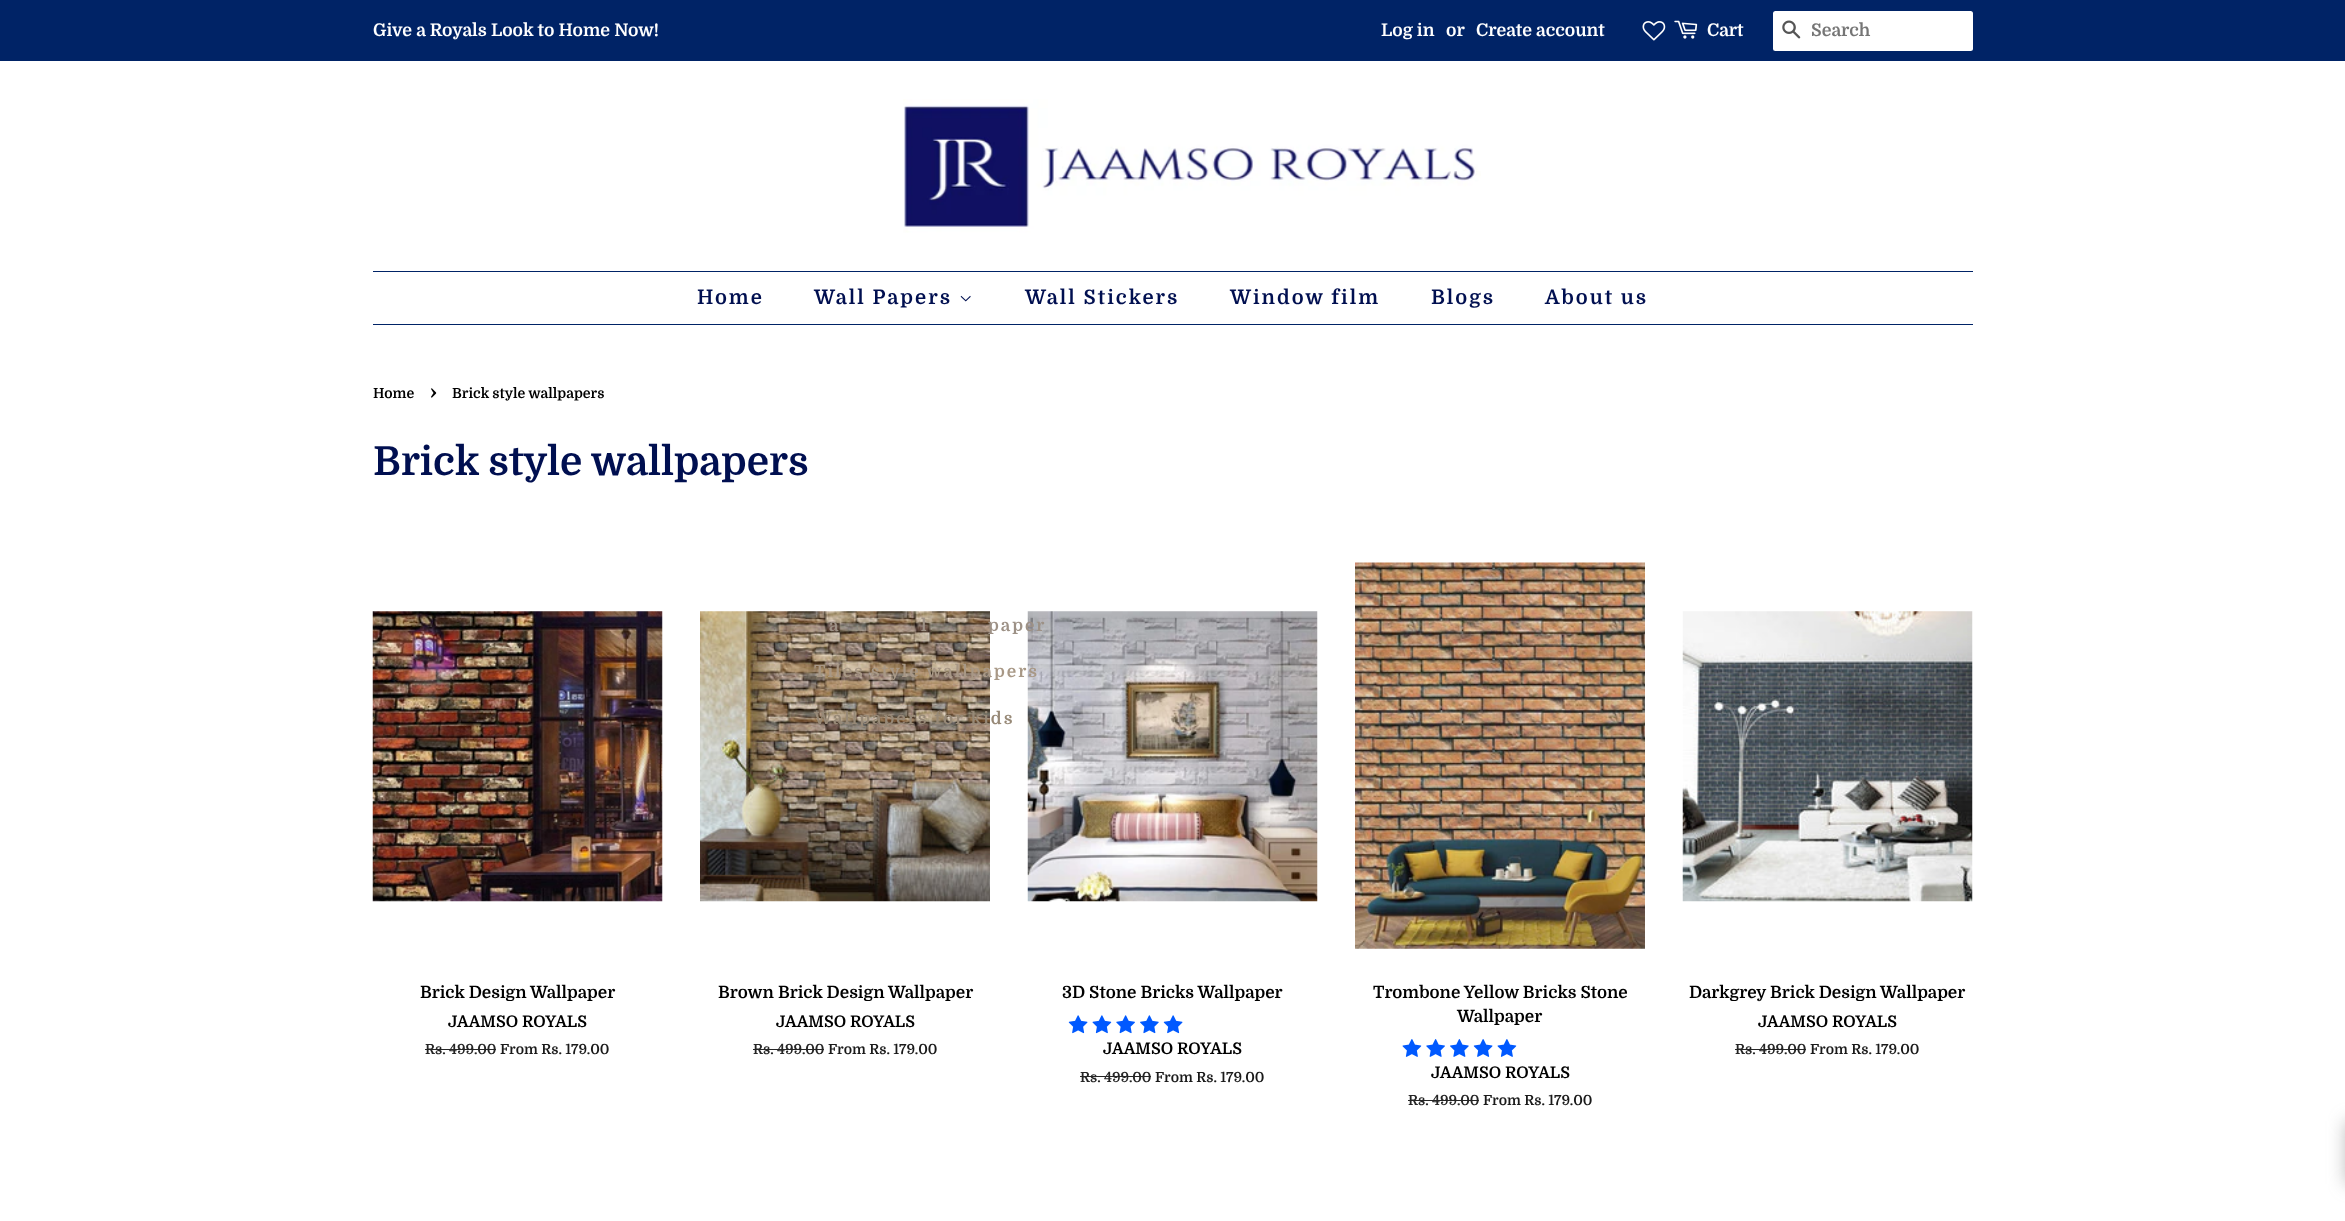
(async () => {
    const canvas = document.querySelector("canvas");
    canvas.width = 2345;
    canvas.height = 1221;
    const context = canvas.getContext("2d");
    context.miterLimit = 4;
    context.fontKerning = "normal";
    function write(s, x, y, font, color) {
        context.font = font;
        context.fillStyle = color;
        context.fillText(s, x, y);
    }
    function block(x, y, w, h, color) {
        context.fillStyle = color;
        context.fillRect(x, y, w, h);
    }
    function card(x, y, w, h, r, color) {
        context.fillStyle = color;
        context.beginPath();
        context.roundRect(x, y, w, h, r);
        context.fill();
    }
    async function photo(src, x, y, w, h) {
        const img = new Image();
        img.src = src;
        await img.decode();
        context.drawImage(img, x, y, w, h);
    }

    block(0, 0, 2345, 1221, "rgb(255, 255, 255)");
    block(0, 0, 2345, 61, "rgb(0, 35, 102)");
    write("Give a Royals Look to Home Now!", 373, 36, "bold 17.5px Domine", "rgb(255, 255, 255)");
    write("Log in", 1381, 36, "bold 17.5px Domine", "rgb(255, 255, 255)");
    write("or", 1446, 36, "bold 17.5px Domine", "rgb(255, 255, 255)");
    write("Create account", 1476, 36, "bold 17.5px Domine", "rgb(255, 255, 255)");
    await photo("media/1.png", 1642, 21, 24, 20);
    await photo("media/2.png", 1674, 20, 24, 19);
    write("Cart", 1707, 36, "bold 17.5px Domine", "rgb(255, 255, 255)");
    card(1773, 11, 200, 40, 2.5, "rgb(255, 255, 255)");
    await photo("media/3.png", 1782, 20, 19, 19);
    write("Search", 1811, 36, "bold 17.5px Domine", "rgb(117, 117, 117)");
    await photo("media/4.png", 903, 99, 578, 134);
    block(373, 271, 1600, 1, "rgb(0, 35, 102)");
    block(373, 324, 1600, 1, "rgb(0, 35, 102)");
    context.letterSpacing = "2px";
    write("Home", 697, 304, "bold 20px Domine", "rgb(0, 15, 80)");
    write("Wall Papers", 814, 304, "bold 20px Domine", "rgb(0, 15, 80)");
    await photo("media/5.png", 960, 295, 11, 7);
    await photo("media/7.png", 700, 611, 290, 291);
    write("a", 829, 631, "bold 17px Domine", "rgb(157, 145, 134)");
    write("l", 921, 631, "bold 17px Domine", "rgb(157, 145, 134)");
    await photo("media/8.png", 1027, 611, 291, 291);
    write("paper", 988, 631, "bold 17px Domine", "rgb(157, 145, 134)");
    write("Tiles style wallpapers", 814, 677, "bold 17px Domine", "rgb(168, 152, 134)");
    write("Wallpapers for kids", 814, 724, "bold 17px Domine", "rgb(151, 137, 119)");
    write("Wall Stickers", 1025, 304, "bold 20px Domine", "rgb(0, 15, 80)");
    write("Window film", 1230, 304, "bold 20px Domine", "rgb(0, 15, 80)");
    write("Blogs", 1431, 304, "bold 20px Domine", "rgb(0, 15, 80)");
    write("About us", 1545, 304, "bold 20px Domine", "rgb(0, 15, 80)");
    context.letterSpacing = "0px";
    write("Home", 373, 398, "bold 14px Domine", "rgb(0, 0, 0)");
    write("›", 430, 398, "bold 20px Domine", "rgb(0, 0, 0)");
    write("Brick style wallpapers", 452, 398, "bold 14px Domine", "rgb(0, 0, 0)");
    write("Brick style wallpapers", 373, 475, "bold 40px Domine", "rgb(0, 15, 80)");
    await photo("media/6.png", 372, 611, 291, 291);
    write("Brick Design Wallpaper", 420, 998, "bold 16.9px Domine", "rgb(0, 0, 0)");
    write("JAAMSO ROYALS", 448, 1027, "bold 16px Domine", "rgb(0, 0, 0)");
    write("Rs. 499.00", 425, 1054, "bold 14px Domine", "rgb(37, 37, 37)");
    block(425, 1049, 71, 1, "rgb(37, 37, 37)");
    write("From Rs. 179.00", 500, 1054, "bold 14px Domine", "rgb(26, 26, 26)");
    write("Brown Brick Design Wallpaper", 718, 998, "bold 16.9px Domine", "rgb(0, 0, 0)");
    write("JAAMSO ROYALS", 776, 1027, "bold 16px Domine", "rgb(0, 0, 0)");
    write("Rs. 499.00", 753, 1054, "bold 14px Domine", "rgb(37, 37, 37)");
    block(753, 1049, 71, 1, "rgb(37, 37, 37)");
    write("From Rs. 179.00", 828, 1054, "bold 14px Domine", "rgb(26, 26, 26)");
    write("3D Stone Bricks Wallpaper", 1062, 998, "bold 16.9px Domine", "rgb(0, 0, 0)");
    await photo("media/9.png", 1068, 1015, 20, 19);
    await photo("media/10.png", 1092, 1015, 20, 19);
    await photo("media/11.png", 1116, 1015, 19, 19);
    await photo("media/12.png", 1140, 1015, 19, 19);
    await photo("media/9.png", 1163, 1015, 20, 19);
    write("JAAMSO ROYALS", 1103, 1054, "bold 16px Domine", "rgb(0, 0, 0)");
    write("Rs. 499.00", 1080, 1082, "bold 14px Domine", "rgb(37, 37, 37)");
    block(1080, 1076, 71, 1, "rgb(37, 37, 37)");
    write("From Rs. 179.00", 1155, 1082, "bold 14px Domine", "rgb(26, 26, 26)");
    await photo("media/13.png", 1355, 562, 290, 387);
    write("Trombone Yellow Bricks Stone", 1373, 998, "bold 16.9px Domine", "rgb(0, 0, 0)");
    write("Wallpaper", 1457, 1022, "bold 16.9px Domine", "rgb(0, 0, 0)");
    await photo("media/14.png", 1402, 1039, 20, 18);
    await photo("media/15.png", 1426, 1039, 19, 18);
    await photo("media/16.png", 1450, 1039, 19, 18);
    await photo("media/17.png", 1473, 1039, 20, 18);
    await photo("media/14.png", 1497, 1039, 20, 18);
    write("JAAMSO ROYALS", 1431, 1078, "bold 16px Domine", "rgb(0, 0, 0)");
    write("Rs. 499.00", 1408, 1105, "bold 14px Domine", "rgb(37, 37, 37)");
    block(1408, 1100, 71, 1, "rgb(37, 37, 37)");
    write("From Rs. 179.00", 1483, 1105, "bold 14px Domine", "rgb(26, 26, 26)");
    await photo("media/18.png", 1682, 611, 291, 291);
    write("Darkgrey Brick Design Wallpaper", 1689, 998, "bold 16.9px Domine", "rgb(0, 0, 0)");
    write("JAAMSO ROYALS", 1758, 1027, "bold 16px Domine", "rgb(0, 0, 0)");
    write("Rs. 499.00", 1735, 1054, "bold 14px Domine", "rgb(37, 37, 37)");
    block(1735, 1049, 71, 1, "rgb(37, 37, 37)");
    write("From Rs. 179.00", 1810, 1054, "bold 14px Domine", "rgb(26, 26, 26)");
    context.fillStyle = "rgba(117, 117, 117, 0.5)";
    context.filter = "blur(9px)";
    context.beginPath();
    context.rect(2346, 1121, 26, 63);
    context.fill();
    context.filter = "none";
})();
